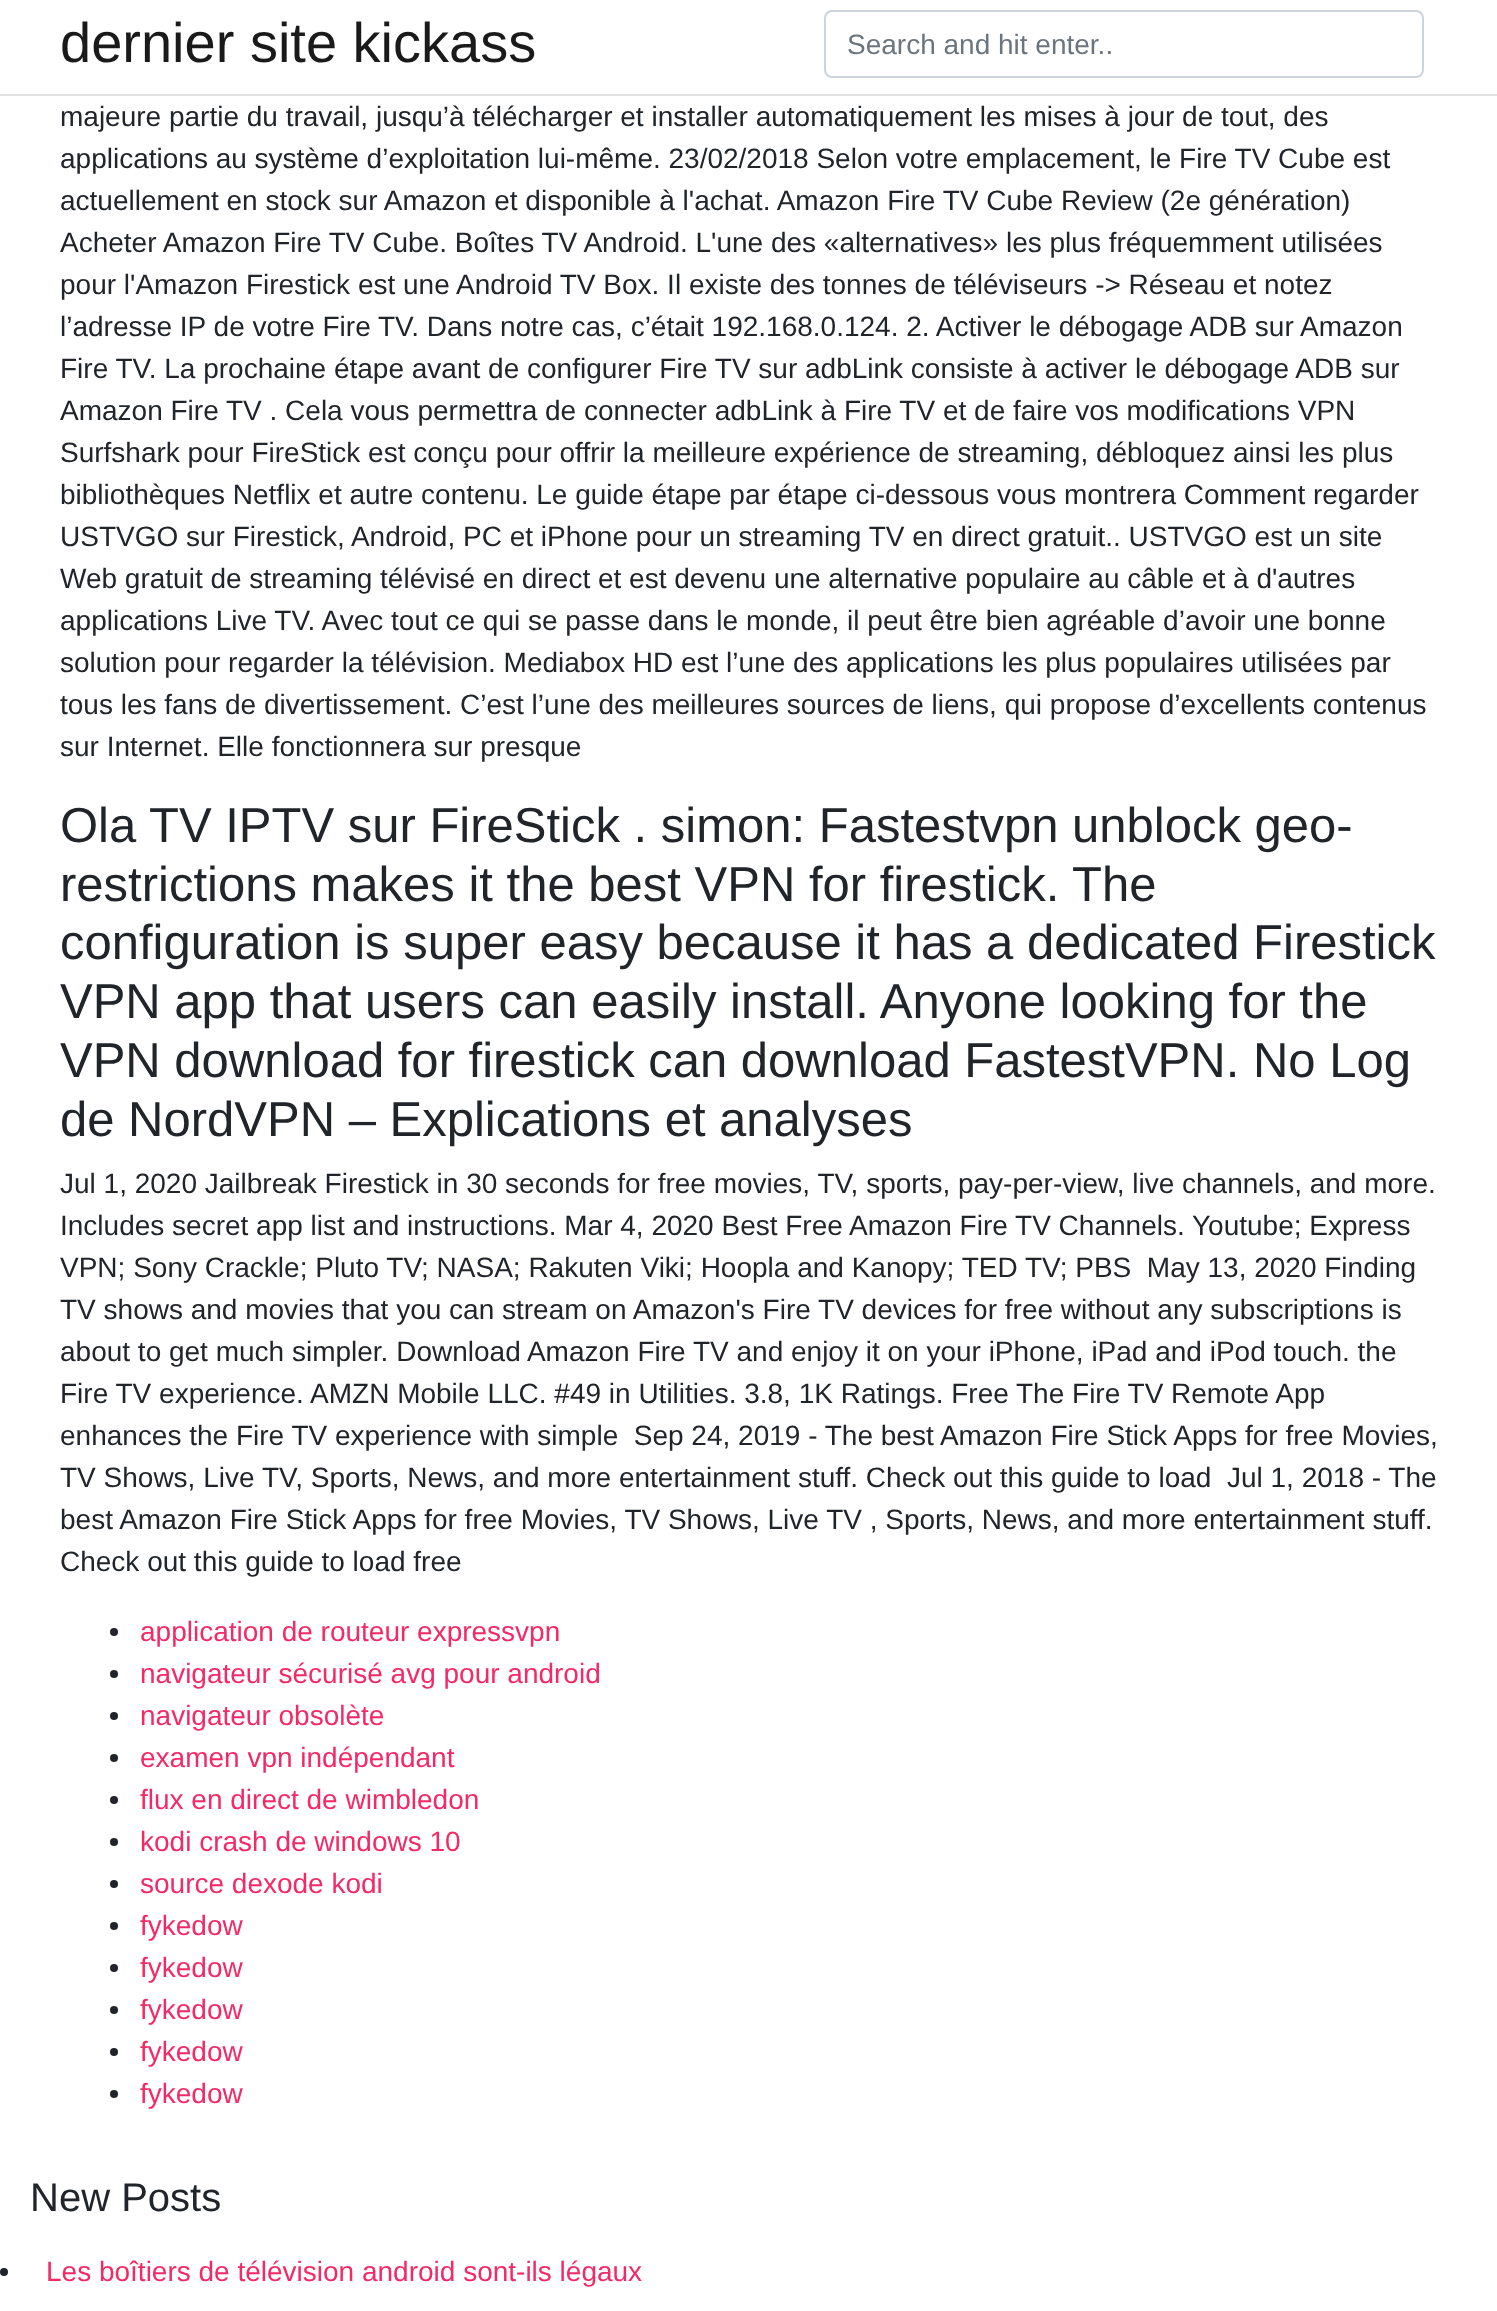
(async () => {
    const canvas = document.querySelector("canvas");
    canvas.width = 1497;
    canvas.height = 2311;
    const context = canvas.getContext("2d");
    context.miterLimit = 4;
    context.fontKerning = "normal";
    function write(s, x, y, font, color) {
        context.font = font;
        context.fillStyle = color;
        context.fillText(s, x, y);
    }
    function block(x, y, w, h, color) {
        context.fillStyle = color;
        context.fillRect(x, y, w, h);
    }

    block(0, 0, 1497, 2311, "rgb(255, 255, 255)");
    block(0, 94, 1497, 2, "rgb(225, 226, 227)");
    write("dernier site kickass", 60, 62, "56px Liberation Sans", "rgb(26, 26, 26)");
    context.beginPath();
    context.roundRect(825, 11, 598, 66, 7);
    context.strokeStyle = "rgb(206, 212, 218)";
    context.lineWidth = 2;
    context.stroke();
    write("Search and hit enter..", 847, 54, "28px Liberation Sans", "rgb(108, 117, 125)");
    write("majeure partie du travail, jusqu’à télécharger et installer automatiquement les mises à jour de tout, des", 60, 126, "28px Liberation Sans", "rgb(33, 37, 41)");
    write("applications au système d’exploitation lui-même. 23/02/2018 Selon votre emplacement, le Fire TV Cube est", 60, 168, "28px Liberation Sans", "rgb(33, 37, 41)");
    write("actuellement en stock sur Amazon et disponible à l'achat. Amazon Fire TV Cube Review (2e génération)", 60, 210, "28px Liberation Sans", "rgb(33, 37, 41)");
    write("Acheter Amazon Fire TV Cube. Boîtes TV Android. L'une des «alternatives» les plus fréquemment utilisées", 60, 252, "28px Liberation Sans", "rgb(33, 37, 41)");
    write("pour l'Amazon Firestick est une Android TV Box. Il existe des tonnes de téléviseurs -> Réseau et notez", 60, 294, "28px Liberation Sans", "rgb(33, 37, 41)");
    write("l’adresse IP de votre Fire TV. Dans notre cas, c’était 192.168.0.124. 2. Activer le débogage ADB sur Amazon", 60, 336, "28px Liberation Sans", "rgb(33, 37, 41)");
    write("Fire TV. La prochaine étape avant de configurer Fire TV sur adbLink consiste à activer le débogage ADB sur", 60, 378, "28px Liberation Sans", "rgb(33, 37, 41)");
    write("Amazon Fire TV . Cela vous permettra de connecter adbLink à Fire TV et de faire vos modifications VPN", 60, 420, "28px Liberation Sans", "rgb(33, 37, 41)");
    write("Surfshark pour FireStick est conçu pour offrir la meilleure expérience de streaming, débloquez ainsi les plus", 60, 462, "28px Liberation Sans", "rgb(33, 37, 41)");
    write("bibliothèques Netflix et autre contenu. Le guide étape par étape ci-dessous vous montrera Comment regarder", 60, 504, "28px Liberation Sans", "rgb(33, 37, 41)");
    write("USTVGO sur Firestick, Android, PC et iPhone pour un streaming TV en direct gratuit.. USTVGO est un site", 60, 546, "28px Liberation Sans", "rgb(33, 37, 41)");
    write("Web gratuit de streaming télévisé en direct et est devenu une alternative populaire au câble et à d'autres", 60, 588, "28px Liberation Sans", "rgb(33, 37, 41)");
    write("applications Live TV. Avec tout ce qui se passe dans le monde, il peut être bien agréable d’avoir une bonne", 60, 630, "28px Liberation Sans", "rgb(33, 37, 41)");
    write("solution pour regarder la télévision. Mediabox HD est l’une des applications les plus populaires utilisées par", 60, 672, "28px Liberation Sans", "rgb(33, 37, 41)");
    write("tous les fans de divertissement. C’est l’une des meilleures sources de liens, qui propose d’excellents contenus", 60, 714, "28px Liberation Sans", "rgb(33, 37, 41)");
    write("sur Internet. Elle fonctionnera sur presque", 60, 756, "28px Liberation Sans", "rgb(33, 37, 41)");
    write("Ola TV IPTV sur FireStick . simon: Fastestvpn unblock geo-", 60, 842, "49px Liberation Sans", "rgb(33, 37, 41)");
    write("restrictions makes it the best VPN for firestick. The", 60, 901, "49px Liberation Sans", "rgb(33, 37, 41)");
    write("configuration is super easy because it has a dedicated Firestick", 60, 959, "49px Liberation Sans", "rgb(33, 37, 41)");
    write("VPN app that users can easily install. Anyone looking for the", 60, 1018, "49px Liberation Sans", "rgb(33, 37, 41)");
    write("VPN download for firestick can download FastestVPN. No Log", 60, 1077, "49px Liberation Sans", "rgb(33, 37, 41)");
    write("de NordVPN – Explications et analyses", 60, 1136, "49px Liberation Sans", "rgb(33, 37, 41)");
    write("Jul 1, 2020 Jailbreak Firestick in 30 seconds for free movies, TV, sports, pay-per-view, live channels, and more.", 60, 1193, "28px Liberation Sans", "rgb(33, 37, 41)");
    write("Includes secret app list and instructions. Mar 4, 2020 Best Free Amazon Fire TV Channels. Youtube; Express", 60, 1235, "28px Liberation Sans", "rgb(33, 37, 41)");
    write("VPN; Sony Crackle; Pluto TV; NASA; Rakuten Viki; Hoopla and Kanopy; TED TV; PBS  May 13, 2020 Finding", 60, 1277, "28px Liberation Sans", "rgb(33, 37, 41)");
    write("TV shows and movies that you can stream on Amazon's Fire TV devices for free without any subscriptions is", 60, 1319, "28px Liberation Sans", "rgb(33, 37, 41)");
    write("about to get much simpler. Download Amazon Fire TV and enjoy it on your iPhone, iPad and iPod touch. the", 60, 1361, "28px Liberation Sans", "rgb(33, 37, 41)");
    write("Fire TV experience. AMZN Mobile LLC. #49 in Utilities. 3.8, 1K Ratings. Free", 60, 1403, "28px Liberation Sans", "rgb(33, 37, 41)");
    write("The Fire TV Remote App", 1016, 1403, "28px Liberation Sans", "rgb(33, 37, 41)");
    write("enhances the Fire TV experience with simple  Sep 24, 2019 - The best Amazon Fire Stick Apps for free Movies,", 60, 1445, "28px Liberation Sans", "rgb(33, 37, 41)");
    write("TV Shows, Live", 60, 1487, "28px Liberation Sans", "rgb(33, 37, 41)");
    write("TV, Sports, News, and more entertainment stuff. Check out this guide to load  Jul 1, 2018 - The", 262, 1487, "28px Liberation Sans", "rgb(33, 37, 41)");
    write("best Amazon Fire Stick Apps for free Movies, TV Shows, Live TV , Sports, News, and more entertainment stuff.", 60, 1529, "28px Liberation Sans", "rgb(33, 37, 41)");
    write("Check out this guide to load free", 60, 1571, "28px Liberation Sans", "rgb(33, 37, 41)");
    context.beginPath();
    context.arc(114, 1632, 4, 0, Math.PI * 2);
    context.fill();
    write("application de routeur expressvpn", 140, 1641, "28px Liberation Sans", "rgb(244, 41, 102)");
    context.fillStyle = "rgb(33, 37, 41)";
    context.beginPath();
    context.arc(114, 1674, 4, 0, Math.PI * 2);
    context.fill();
    write("navigateur sécurisé avg pour android", 140, 1683, "28px Liberation Sans", "rgb(244, 41, 102)");
    context.fillStyle = "rgb(33, 37, 41)";
    context.beginPath();
    context.arc(114, 1716, 4, 0, Math.PI * 2);
    context.fill();
    write("navigateur obsolète", 140, 1725, "28px Liberation Sans", "rgb(244, 41, 102)");
    context.fillStyle = "rgb(33, 37, 41)";
    context.beginPath();
    context.arc(114, 1758, 4, 0, Math.PI * 2);
    context.fill();
    write("examen vpn indépendant", 140, 1767, "28px Liberation Sans", "rgb(244, 41, 102)");
    context.fillStyle = "rgb(33, 37, 41)";
    context.beginPath();
    context.arc(114, 1800, 4, 0, Math.PI * 2);
    context.fill();
    write("flux en direct de wimbledon", 140, 1809, "28px Liberation Sans", "rgb(244, 41, 102)");
    context.fillStyle = "rgb(33, 37, 41)";
    context.beginPath();
    context.arc(114, 1842, 4, 0, Math.PI * 2);
    context.fill();
    write("kodi crash de windows 10", 140, 1851, "28px Liberation Sans", "rgb(244, 41, 102)");
    context.fillStyle = "rgb(33, 37, 41)";
    context.beginPath();
    context.arc(114, 1884, 4, 0, Math.PI * 2);
    context.fill();
    write("source dexode kodi", 140, 1893, "28px Liberation Sans", "rgb(244, 41, 102)");
    context.fillStyle = "rgb(33, 37, 41)";
    context.beginPath();
    context.arc(114, 1926, 4, 0, Math.PI * 2);
    context.fill();
    write("fykedow", 140, 1935, "28px Liberation Sans", "rgb(244, 41, 102)");
    context.fillStyle = "rgb(33, 37, 41)";
    context.beginPath();
    context.arc(114, 1968, 4, 0, Math.PI * 2);
    context.fill();
    write("fykedow", 140, 1977, "28px Liberation Sans", "rgb(244, 41, 102)");
    context.fillStyle = "rgb(33, 37, 41)";
    context.beginPath();
    context.arc(114, 2010, 4, 0, Math.PI * 2);
    context.fill();
    write("fykedow", 140, 2019, "28px Liberation Sans", "rgb(244, 41, 102)");
    context.fillStyle = "rgb(33, 37, 41)";
    context.beginPath();
    context.arc(114, 2052, 4, 0, Math.PI * 2);
    context.fill();
    write("fykedow", 140, 2061, "28px Liberation Sans", "rgb(244, 41, 102)");
    context.fillStyle = "rgb(33, 37, 41)";
    context.beginPath();
    context.arc(114, 2094, 4, 0, Math.PI * 2);
    context.fill();
    write("fykedow", 140, 2103, "28px Liberation Sans", "rgb(244, 41, 102)");
    write("New Posts", 30, 2211, "40px Liberation Sans", "rgb(33, 37, 41)");
    context.beginPath();
    context.arc(4, 2272, 4, 0, Math.PI * 2);
    context.fill();
    write("Les boîtiers de télévision android sont-ils légaux", 46, 2281, "28px Liberation Sans", "rgb(244, 41, 102)");
})();
